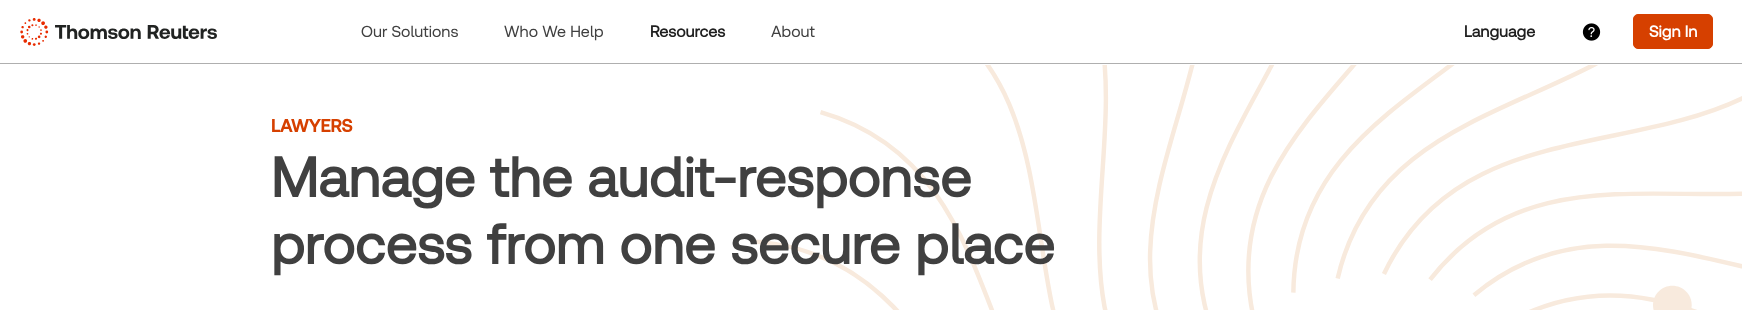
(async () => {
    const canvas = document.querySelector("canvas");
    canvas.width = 1742;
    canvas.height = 310;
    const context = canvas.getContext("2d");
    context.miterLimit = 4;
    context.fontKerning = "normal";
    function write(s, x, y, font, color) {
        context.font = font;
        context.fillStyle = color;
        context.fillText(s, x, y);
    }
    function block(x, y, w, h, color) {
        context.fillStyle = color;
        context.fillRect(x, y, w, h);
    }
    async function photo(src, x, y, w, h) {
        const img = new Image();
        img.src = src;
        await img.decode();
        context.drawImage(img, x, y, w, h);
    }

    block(0, 0, 1742, 310, "rgb(255, 255, 255)");
    await photo("media/1.png", 752, 65, 990, 245);
    block(0, 63, 1742, 1, "rgb(175, 175, 175)");
    await photo("media/2.png", 20, 18, 197, 28);
    write("Our Solutions", 361, 37, "16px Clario", "rgb(64, 64, 64)");
    write("Who We Help", 504, 37, "16px Clario", "rgb(64, 64, 64)");
    write("Resources", 650, 37, "bold 16px 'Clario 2'", "rgb(31, 31, 31)");
    write("About", 771, 37, "16px Clario", "rgb(64, 64, 64)");
    write("Language", 1464, 37, "bold 16px 'Clario 2'", "rgb(31, 31, 31)");
    await photo("media/3.png", 1582, 23, 19, 18);
    context.fillStyle = "rgb(214, 64, 0)";
    context.beginPath();
    context.roundRect(1633.5, 14.5, 79, 34, 4.5);
    context.fill();
    context.strokeStyle = "rgb(214, 64, 0)";
    context.stroke();
    write("Sign In", 1649, 37, "bold 16px 'Clario 2'", "rgb(255, 255, 255)");
    write("LAWYERS", 271, 132, "bold 18px Clario", "rgb(214, 64, 0)");
    write("Manage the audit-response", 271, 197, "bold 56px 'Clario 2'", "rgb(64, 64, 64)");
    write("process from one secure place", 271, 264, "bold 56px 'Clario 2'", "rgb(64, 64, 64)");
})();
